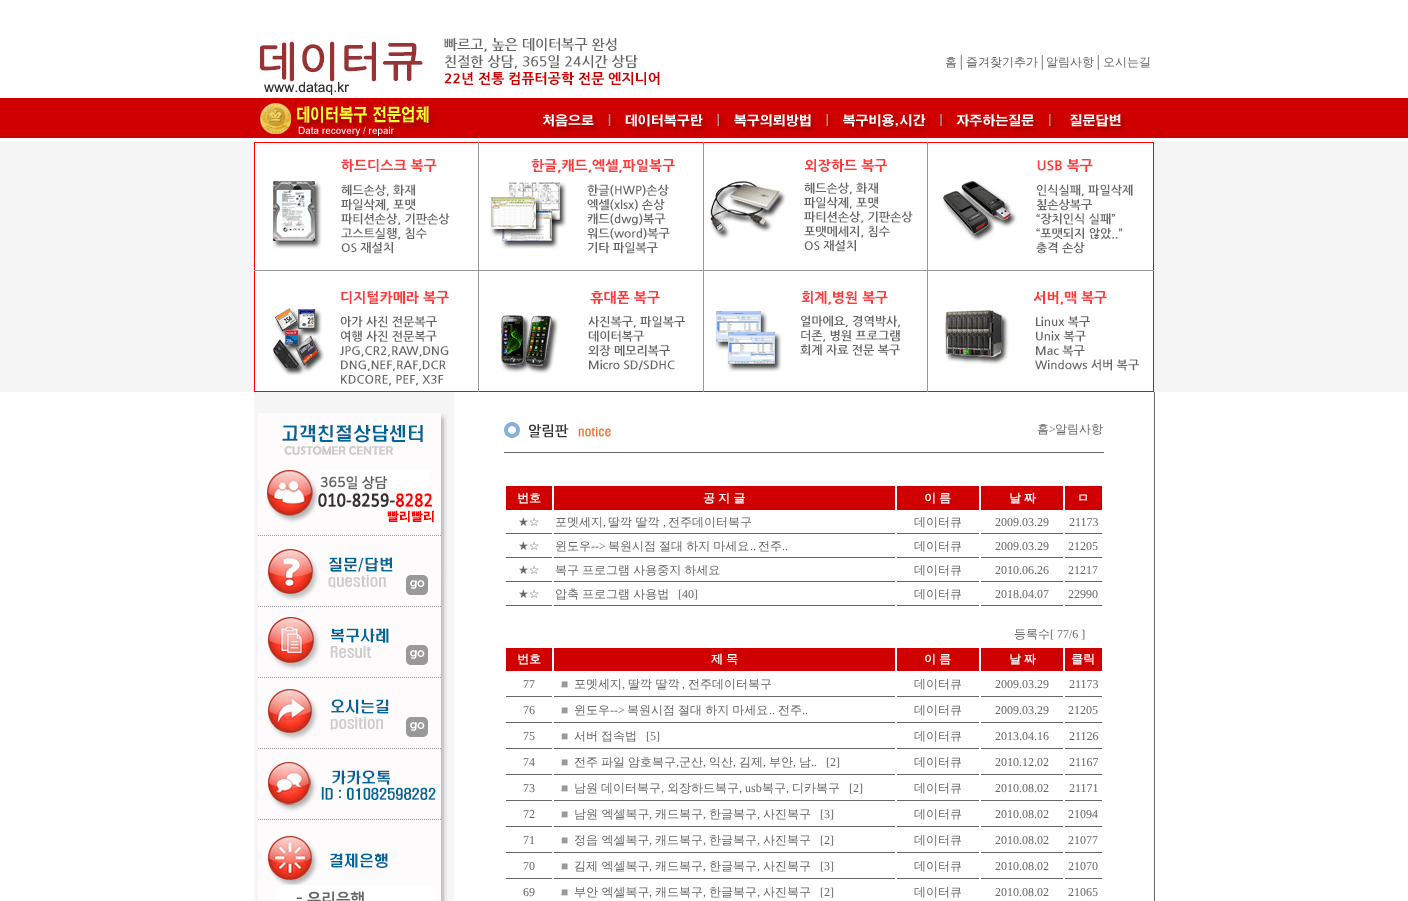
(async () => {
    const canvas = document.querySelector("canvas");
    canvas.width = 1408;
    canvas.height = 901;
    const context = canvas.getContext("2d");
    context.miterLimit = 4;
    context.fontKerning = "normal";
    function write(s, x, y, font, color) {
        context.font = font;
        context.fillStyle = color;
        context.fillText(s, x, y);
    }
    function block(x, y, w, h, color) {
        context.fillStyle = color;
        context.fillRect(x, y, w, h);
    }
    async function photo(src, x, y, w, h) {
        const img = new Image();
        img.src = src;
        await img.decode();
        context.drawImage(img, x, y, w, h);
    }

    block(0, 0, 1408, 901, "rgb(255, 255, 255)");
    await photo("media/1.png", 260, 38, 400, 57);
    write("홈", 945, 66, "500 12px WenQuanYi Zen Hei", "rgb(102, 102, 102)");
    write("│", 957, 66, "12px Liberation Serif", "rgb(102, 102, 102)");
    write("즐겨찾기추가", 966, 66, "500 12px WenQuanYi Zen Hei", "rgb(102, 102, 102)");
    write("│", 1038, 66, "12px Liberation Serif", "rgb(102, 102, 102)");
    write("알림사항", 1046, 66, "500 12px WenQuanYi Zen Hei", "rgb(102, 102, 102)");
    write("│", 1094, 66, "12px Liberation Serif", "rgb(102, 102, 102)");
    write("오시는길", 1103, 66, "500 12px WenQuanYi Zen Hei", "rgb(102, 102, 102)");
    block(0, 98, 254, 40, "rgb(208, 0, 0)");
    await photo("media/2.png", 254, 98, 900, 40);
    block(1154, 98, 254, 40, "rgb(208, 0, 0)");
    block(0, 142, 254, 250, "rgb(245, 245, 245)");
    await photo("media/3.png", 254, 142, 900, 250);
    block(1154, 142, 254, 250, "rgb(245, 245, 245)");
    block(254, 392, 200, 509, "rgb(245, 245, 245)");
    await photo("media/4.png", 258, 413, 190, 488);
    block(1154, 392, 1, 509, "rgb(102, 102, 102)");
    block(504, 452, 600, 1, "rgb(102, 102, 102)");
    await photo("media/5.png", 504, 422, 107, 16);
    write("홈", 1037, 433, "500 12px WenQuanYi Zen Hei", "rgb(102, 102, 102)");
    write(">", 1049, 433, "12px Liberation Serif", "rgb(102, 102, 102)");
    write("알림사항", 1055, 433, "500 12px WenQuanYi Zen Hei", "rgb(102, 102, 102)");
    block(506, 486, 46, 24, "rgb(208, 0, 0)");
    write("번호", 517, 502, "bold 12px WenQuanYi Zen Hei", "rgb(255, 255, 255)");
    block(554, 486, 341, 24, "rgb(208, 0, 0)");
    context.wordSpacing = "-0.5px";
    write("공 지 글", 703, 502, "bold 12px WenQuanYi Zen Hei", "rgb(255, 255, 255)");
    block(897, 486, 82, 24, "rgb(208, 0, 0)");
    write("이 름", 924, 502, "bold 12px WenQuanYi Zen Hei", "rgb(255, 255, 255)");
    block(981, 486, 82, 24, "rgb(208, 0, 0)");
    write("날 짜", 1009, 502, "bold 12px WenQuanYi Zen Hei", "rgb(255, 255, 255)");
    block(1065, 486, 37, 24, "rgb(208, 0, 0)");
    context.wordSpacing = "0px";
    write("ㅁ", 1077, 502, "bold 12px WenQuanYi Zen Hei", "rgb(255, 255, 255)");
    block(506, 533, 46, 1, "rgb(102, 102, 102)");
    write("★☆", 518, 526, "12px DejaVu Sans", "rgb(102, 102, 102)");
    block(554, 533, 341, 1, "rgb(102, 102, 102)");
    write("포멧세지", 555, 526, "500 12px WenQuanYi Zen Hei", "rgb(102, 102, 102)");
    write(",", 603, 526, "12px Liberation Serif", "rgb(102, 102, 102)");
    write("딸깍 딸깍", 608, 526, "500 12px WenQuanYi Zen Hei", "rgb(102, 102, 102)");
    write(",", 663, 526, "12px Liberation Serif", "rgb(102, 102, 102)");
    write("전주데이터복구", 668, 526, "500 12px WenQuanYi Zen Hei", "rgb(102, 102, 102)");
    block(897, 533, 82, 1, "rgb(102, 102, 102)");
    write("데이터큐", 914, 526, "500 12px WenQuanYi Zen Hei", "rgb(102, 102, 102)");
    block(981, 533, 82, 1, "rgb(102, 102, 102)");
    write("2009.03.29", 995, 526, "12px Liberation Serif", "rgb(102, 102, 102)");
    block(1065, 533, 37, 1, "rgb(102, 102, 102)");
    write("21173", 1069, 526, "12px Liberation Serif", "rgb(102, 102, 102)");
    block(506, 557, 46, 1, "rgb(102, 102, 102)");
    write("★☆", 518, 550, "12px DejaVu Sans", "rgb(102, 102, 102)");
    block(554, 557, 341, 1, "rgb(102, 102, 102)");
    write("윈도우", 555, 550, "500 12px WenQuanYi Zen Hei", "rgb(102, 102, 102)");
    write("-->", 591, 550, "12px Liberation Serif", "rgb(102, 102, 102)");
    context.wordSpacing = "-0.5px";
    write("복원시점 절대 하지 마세요", 608, 550, "500 12px WenQuanYi Zen Hei", "rgb(102, 102, 102)");
    context.wordSpacing = "0px";
    write("전주", 758, 550, "500 12px WenQuanYi Zen Hei", "rgb(102, 102, 102)");
    write("..", 750, 550, "12px Liberation Serif", "rgb(102, 102, 102)");
    write("..", 782, 550, "12px Liberation Serif", "rgb(102, 102, 102)");
    block(897, 557, 82, 1, "rgb(102, 102, 102)");
    write("데이터큐", 914, 550, "500 12px WenQuanYi Zen Hei", "rgb(102, 102, 102)");
    block(981, 557, 82, 1, "rgb(102, 102, 102)");
    write("2009.03.29", 995, 550, "12px Liberation Serif", "rgb(102, 102, 102)");
    block(1065, 557, 37, 1, "rgb(102, 102, 102)");
    write("21205", 1068, 550, "12px Liberation Serif", "rgb(102, 102, 102)");
    block(506, 581, 46, 1, "rgb(102, 102, 102)");
    write("★☆", 518, 574, "12px DejaVu Sans", "rgb(102, 102, 102)");
    block(554, 581, 341, 1, "rgb(102, 102, 102)");
    context.wordSpacing = "-0.5px";
    write("복구 프로그램 사용중지 하세요", 555, 574, "500 12px WenQuanYi Zen Hei", "rgb(102, 102, 102)");
    block(897, 581, 82, 1, "rgb(102, 102, 102)");
    context.wordSpacing = "0px";
    write("데이터큐", 914, 574, "500 12px WenQuanYi Zen Hei", "rgb(102, 102, 102)");
    block(981, 581, 82, 1, "rgb(102, 102, 102)");
    write("2010.06.26", 995, 574, "12px Liberation Serif", "rgb(102, 102, 102)");
    block(1065, 581, 37, 1, "rgb(102, 102, 102)");
    write("21217", 1068, 574, "12px Liberation Serif", "rgb(102, 102, 102)");
    block(506, 605, 46, 1, "rgb(102, 102, 102)");
    write("★☆", 518, 598, "12px DejaVu Sans", "rgb(102, 102, 102)");
    block(554, 605, 341, 1, "rgb(102, 102, 102)");
    context.wordSpacing = "-0.5px";
    write("압축 프로그램 사용법", 555, 598, "500 12px WenQuanYi Zen Hei", "rgb(102, 102, 102)");
    context.wordSpacing = "0px";
    write("[40]", 678, 598, "12px Liberation Serif", "rgb(102, 102, 102)");
    block(897, 605, 82, 1, "rgb(102, 102, 102)");
    write("데이터큐", 914, 598, "500 12px WenQuanYi Zen Hei", "rgb(102, 102, 102)");
    block(981, 605, 82, 1, "rgb(102, 102, 102)");
    write("2018.04.07", 995, 598, "12px Liberation Serif", "rgb(102, 102, 102)");
    block(1065, 605, 37, 1, "rgb(102, 102, 102)");
    write("22990", 1068, 598, "12px Liberation Serif", "rgb(102, 102, 102)");
    write("등록수", 1014, 638, "500 12px WenQuanYi Zen Hei", "rgb(102, 102, 102)");
    write("[ 77/6 ]", 1050, 638, "12px Liberation Serif", "rgb(102, 102, 102)");
    block(506, 648, 46, 23, "rgb(208, 0, 0)");
    write("번호", 517, 663, "bold 12px WenQuanYi Zen Hei", "rgb(255, 255, 255)");
    block(554, 648, 341, 23, "rgb(208, 0, 0)");
    context.wordSpacing = "-0.5px";
    write("제 목", 711, 663, "bold 12px WenQuanYi Zen Hei", "rgb(255, 255, 255)");
    block(897, 648, 82, 23, "rgb(208, 0, 0)");
    write("이 름", 924, 663, "bold 12px WenQuanYi Zen Hei", "rgb(255, 255, 255)");
    block(981, 648, 82, 23, "rgb(208, 0, 0)");
    write("날 짜", 1009, 663, "bold 12px WenQuanYi Zen Hei", "rgb(255, 255, 255)");
    block(1065, 648, 37, 23, "rgb(208, 0, 0)");
    context.wordSpacing = "0px";
    write("클릭", 1071, 663, "bold 12px WenQuanYi Zen Hei", "rgb(255, 255, 255)");
    block(506, 696, 46, 1, "rgb(102, 102, 102)");
    write("77", 523, 688, "12px Liberation Serif", "rgb(102, 102, 102)");
    block(554, 696, 341, 1, "rgb(102, 102, 102)");
    write("■", 561, 688, "12px Liberation Serif", "rgb(153, 153, 153)");
    write("포멧세지", 574, 688, "500 12px WenQuanYi Zen Hei", "rgb(102, 102, 102)");
    write(",", 622, 688, "12px Liberation Serif", "rgb(102, 102, 102)");
    write("딸깍 딸깍", 628, 688, "500 12px WenQuanYi Zen Hei", "rgb(102, 102, 102)");
    write(",", 682, 688, "12px Liberation Serif", "rgb(102, 102, 102)");
    write("전주데이터복구", 688, 688, "500 12px WenQuanYi Zen Hei", "rgb(102, 102, 102)");
    block(897, 696, 82, 1, "rgb(102, 102, 102)");
    write("데이터큐", 914, 688, "500 12px WenQuanYi Zen Hei", "rgb(102, 102, 102)");
    block(981, 696, 82, 1, "rgb(102, 102, 102)");
    write("2009.03.29", 995, 688, "12px Liberation Serif", "rgb(102, 102, 102)");
    block(1065, 696, 37, 1, "rgb(102, 102, 102)");
    write("21173", 1069, 688, "12px Liberation Serif", "rgb(102, 102, 102)");
    block(506, 722, 46, 1, "rgb(102, 102, 102)");
    write("76", 523, 714, "12px Liberation Serif", "rgb(102, 102, 102)");
    block(554, 722, 341, 1, "rgb(102, 102, 102)");
    write("■", 561, 714, "12px Liberation Serif", "rgb(153, 153, 153)");
    write("윈도우", 574, 714, "500 12px WenQuanYi Zen Hei", "rgb(102, 102, 102)");
    write("-->", 610, 714, "12px Liberation Serif", "rgb(102, 102, 102)");
    context.wordSpacing = "-0.5px";
    write("복원시점 절대 하지 마세요", 627, 714, "500 12px WenQuanYi Zen Hei", "rgb(102, 102, 102)");
    context.wordSpacing = "0px";
    write("전주", 778, 714, "500 12px WenQuanYi Zen Hei", "rgb(102, 102, 102)");
    write("..", 769, 714, "12px Liberation Serif", "rgb(102, 102, 102)");
    write("..", 802, 714, "12px Liberation Serif", "rgb(102, 102, 102)");
    block(897, 722, 82, 1, "rgb(102, 102, 102)");
    write("데이터큐", 914, 714, "500 12px WenQuanYi Zen Hei", "rgb(102, 102, 102)");
    block(981, 722, 82, 1, "rgb(102, 102, 102)");
    write("2009.03.29", 995, 714, "12px Liberation Serif", "rgb(102, 102, 102)");
    block(1065, 722, 37, 1, "rgb(102, 102, 102)");
    write("21205", 1068, 714, "12px Liberation Serif", "rgb(102, 102, 102)");
    block(506, 748, 46, 1, "rgb(102, 102, 102)");
    write("75", 523, 740, "12px Liberation Serif", "rgb(102, 102, 102)");
    block(554, 748, 341, 1, "rgb(102, 102, 102)");
    write("■", 561, 740, "12px Liberation Serif", "rgb(153, 153, 153)");
    context.wordSpacing = "-0.5px";
    write("서버 접속법", 574, 740, "500 12px WenQuanYi Zen Hei", "rgb(102, 102, 102)");
    context.wordSpacing = "0px";
    write("[5]", 646, 740, "12px Liberation Serif", "rgb(102, 102, 102)");
    block(897, 748, 82, 1, "rgb(102, 102, 102)");
    write("데이터큐", 914, 740, "500 12px WenQuanYi Zen Hei", "rgb(102, 102, 102)");
    block(981, 748, 82, 1, "rgb(102, 102, 102)");
    write("2013.04.16", 995, 740, "12px Liberation Serif", "rgb(102, 102, 102)");
    block(1065, 748, 37, 1, "rgb(102, 102, 102)");
    write("21126", 1069, 740, "12px Liberation Serif", "rgb(102, 102, 102)");
    block(506, 774, 46, 1, "rgb(102, 102, 102)");
    write("74", 523, 766, "12px Liberation Serif", "rgb(102, 102, 102)");
    block(554, 774, 341, 1, "rgb(102, 102, 102)");
    write("■", 561, 766, "12px Liberation Serif", "rgb(153, 153, 153)");
    context.wordSpacing = "-0.5px";
    write("전주 파일", 574, 766, "500 12px WenQuanYi Zen Hei", "rgb(102, 102, 102)");
    context.wordSpacing = "0px";
    write("암호복구", 628, 766, "500 12px WenQuanYi Zen Hei", "rgb(102, 102, 102)");
    write(",", 676, 766, "12px Liberation Serif", "rgb(102, 102, 102)");
    write("군산", 679, 766, "500 12px WenQuanYi Zen Hei", "rgb(102, 102, 102)");
    write(",", 703, 766, "12px Liberation Serif", "rgb(102, 102, 102)");
    write("익산", 709, 766, "500 12px WenQuanYi Zen Hei", "rgb(102, 102, 102)");
    write(",", 733, 766, "12px Liberation Serif", "rgb(102, 102, 102)");
    write("김제", 739, 766, "500 12px WenQuanYi Zen Hei", "rgb(102, 102, 102)");
    write(",", 763, 766, "12px Liberation Serif", "rgb(102, 102, 102)");
    write("부안", 769, 766, "500 12px WenQuanYi Zen Hei", "rgb(102, 102, 102)");
    write(",", 793, 766, "12px Liberation Serif", "rgb(102, 102, 102)");
    write("남", 799, 766, "500 12px WenQuanYi Zen Hei", "rgb(102, 102, 102)");
    write("..", 811, 766, "12px Liberation Serif", "rgb(102, 102, 102)");
    write("[2]", 826, 766, "12px Liberation Serif", "rgb(102, 102, 102)");
    block(897, 774, 82, 1, "rgb(102, 102, 102)");
    write("데이터큐", 914, 766, "500 12px WenQuanYi Zen Hei", "rgb(102, 102, 102)");
    block(981, 774, 82, 1, "rgb(102, 102, 102)");
    write("2010.12.02", 995, 766, "12px Liberation Serif", "rgb(102, 102, 102)");
    block(1065, 774, 37, 1, "rgb(102, 102, 102)");
    write("21167", 1069, 766, "12px Liberation Serif", "rgb(102, 102, 102)");
    block(506, 800, 46, 1, "rgb(102, 102, 102)");
    write("73", 523, 792, "12px Liberation Serif", "rgb(102, 102, 102)");
    block(554, 800, 341, 1, "rgb(102, 102, 102)");
    write("■", 561, 792, "12px Liberation Serif", "rgb(153, 153, 153)");
    write("남원", 574, 792, "500 12px WenQuanYi Zen Hei", "rgb(102, 102, 102)");
    write("데이터복구", 601, 792, "500 12px WenQuanYi Zen Hei", "rgb(102, 102, 102)");
    write(",", 661, 792, "12px Liberation Serif", "rgb(102, 102, 102)");
    write("외장하드복구", 667, 792, "500 12px WenQuanYi Zen Hei", "rgb(102, 102, 102)");
    write(", usb", 739, 792, "12px Liberation Serif", "rgb(102, 102, 102)");
    write("복구", 762, 792, "500 12px WenQuanYi Zen Hei", "rgb(102, 102, 102)");
    write(",", 786, 792, "12px Liberation Serif", "rgb(102, 102, 102)");
    write("디카복구", 792, 792, "500 12px WenQuanYi Zen Hei", "rgb(102, 102, 102)");
    write("[2]", 849, 792, "12px Liberation Serif", "rgb(102, 102, 102)");
    block(897, 800, 82, 1, "rgb(102, 102, 102)");
    write("데이터큐", 914, 792, "500 12px WenQuanYi Zen Hei", "rgb(102, 102, 102)");
    block(981, 800, 82, 1, "rgb(102, 102, 102)");
    write("2010.08.02", 995, 792, "12px Liberation Serif", "rgb(102, 102, 102)");
    block(1065, 800, 37, 1, "rgb(102, 102, 102)");
    write("21171", 1069, 792, "12px Liberation Serif", "rgb(102, 102, 102)");
    block(506, 826, 46, 1, "rgb(102, 102, 102)");
    write("72", 523, 818, "12px Liberation Serif", "rgb(102, 102, 102)");
    block(554, 826, 341, 1, "rgb(102, 102, 102)");
    write("■", 561, 818, "12px Liberation Serif", "rgb(153, 153, 153)");
    write("남원 엑셀복구", 574, 818, "500 12px WenQuanYi Zen Hei", "rgb(102, 102, 102)");
    write(",", 649, 818, "12px Liberation Serif", "rgb(102, 102, 102)");
    write("캐드복구", 655, 818, "500 12px WenQuanYi Zen Hei", "rgb(102, 102, 102)");
    write(",", 703, 818, "12px Liberation Serif", "rgb(102, 102, 102)");
    write("한글복구", 709, 818, "500 12px WenQuanYi Zen Hei", "rgb(102, 102, 102)");
    write(",", 757, 818, "12px Liberation Serif", "rgb(102, 102, 102)");
    write("사진복구", 763, 818, "500 12px WenQuanYi Zen Hei", "rgb(102, 102, 102)");
    write("[3]", 820, 818, "12px Liberation Serif", "rgb(102, 102, 102)");
    block(897, 826, 82, 1, "rgb(102, 102, 102)");
    write("데이터큐", 914, 818, "500 12px WenQuanYi Zen Hei", "rgb(102, 102, 102)");
    block(981, 826, 82, 1, "rgb(102, 102, 102)");
    write("2010.08.02", 995, 818, "12px Liberation Serif", "rgb(102, 102, 102)");
    block(1065, 826, 37, 1, "rgb(102, 102, 102)");
    write("21094", 1068, 818, "12px Liberation Serif", "rgb(102, 102, 102)");
    block(506, 852, 46, 1, "rgb(102, 102, 102)");
    write("71", 523, 844, "12px Liberation Serif", "rgb(102, 102, 102)");
    block(554, 852, 341, 1, "rgb(102, 102, 102)");
    write("■", 561, 844, "12px Liberation Serif", "rgb(153, 153, 153)");
    write("정읍 엑셀복구", 574, 844, "500 12px WenQuanYi Zen Hei", "rgb(102, 102, 102)");
    write(",", 649, 844, "12px Liberation Serif", "rgb(102, 102, 102)");
    write("캐드복구", 655, 844, "500 12px WenQuanYi Zen Hei", "rgb(102, 102, 102)");
    write(",", 703, 844, "12px Liberation Serif", "rgb(102, 102, 102)");
    write("한글복구", 709, 844, "500 12px WenQuanYi Zen Hei", "rgb(102, 102, 102)");
    write(",", 757, 844, "12px Liberation Serif", "rgb(102, 102, 102)");
    write("사진복구", 763, 844, "500 12px WenQuanYi Zen Hei", "rgb(102, 102, 102)");
    write("[2]", 820, 844, "12px Liberation Serif", "rgb(102, 102, 102)");
    block(897, 852, 82, 1, "rgb(102, 102, 102)");
    write("데이터큐", 914, 844, "500 12px WenQuanYi Zen Hei", "rgb(102, 102, 102)");
    block(981, 852, 82, 1, "rgb(102, 102, 102)");
    write("2010.08.02", 995, 844, "12px Liberation Serif", "rgb(102, 102, 102)");
    block(1065, 852, 37, 1, "rgb(102, 102, 102)");
    write("21077", 1068, 844, "12px Liberation Serif", "rgb(102, 102, 102)");
    block(506, 878, 46, 1, "rgb(102, 102, 102)");
    write("70", 523, 870, "12px Liberation Serif", "rgb(102, 102, 102)");
    block(554, 878, 341, 1, "rgb(102, 102, 102)");
    write("■", 561, 870, "12px Liberation Serif", "rgb(153, 153, 153)");
    write("김제 엑셀복구", 574, 870, "500 12px WenQuanYi Zen Hei", "rgb(102, 102, 102)");
    write(",", 649, 870, "12px Liberation Serif", "rgb(102, 102, 102)");
    write("캐드복구", 655, 870, "500 12px WenQuanYi Zen Hei", "rgb(102, 102, 102)");
    write(",", 703, 870, "12px Liberation Serif", "rgb(102, 102, 102)");
    write("한글복구", 709, 870, "500 12px WenQuanYi Zen Hei", "rgb(102, 102, 102)");
    write(",", 757, 870, "12px Liberation Serif", "rgb(102, 102, 102)");
    write("사진복구", 763, 870, "500 12px WenQuanYi Zen Hei", "rgb(102, 102, 102)");
    write("[3]", 820, 870, "12px Liberation Serif", "rgb(102, 102, 102)");
    block(897, 878, 82, 1, "rgb(102, 102, 102)");
    write("데이터큐", 914, 870, "500 12px WenQuanYi Zen Hei", "rgb(102, 102, 102)");
    block(981, 878, 82, 1, "rgb(102, 102, 102)");
    write("2010.08.02", 995, 870, "12px Liberation Serif", "rgb(102, 102, 102)");
    block(1065, 878, 37, 1, "rgb(102, 102, 102)");
    write("21070", 1068, 870, "12px Liberation Serif", "rgb(102, 102, 102)");
    write("69", 523, 896, "12px Liberation Serif", "rgb(102, 102, 102)");
    write("■", 561, 896, "12px Liberation Serif", "rgb(153, 153, 153)");
    write("부안 엑셀복구", 574, 896, "500 12px WenQuanYi Zen Hei", "rgb(102, 102, 102)");
    write(",", 649, 896, "12px Liberation Serif", "rgb(102, 102, 102)");
    write("캐드복구", 655, 896, "500 12px WenQuanYi Zen Hei", "rgb(102, 102, 102)");
    write(",", 703, 896, "12px Liberation Serif", "rgb(102, 102, 102)");
    write("한글복구", 709, 896, "500 12px WenQuanYi Zen Hei", "rgb(102, 102, 102)");
    write(",", 757, 896, "12px Liberation Serif", "rgb(102, 102, 102)");
    write("사진복구", 763, 896, "500 12px WenQuanYi Zen Hei", "rgb(102, 102, 102)");
    write("[2]", 820, 896, "12px Liberation Serif", "rgb(102, 102, 102)");
    write("데이터큐", 914, 896, "500 12px WenQuanYi Zen Hei", "rgb(102, 102, 102)");
    write("2010.08.02", 995, 896, "12px Liberation Serif", "rgb(102, 102, 102)");
    write("21065", 1068, 896, "12px Liberation Serif", "rgb(102, 102, 102)");
})();
